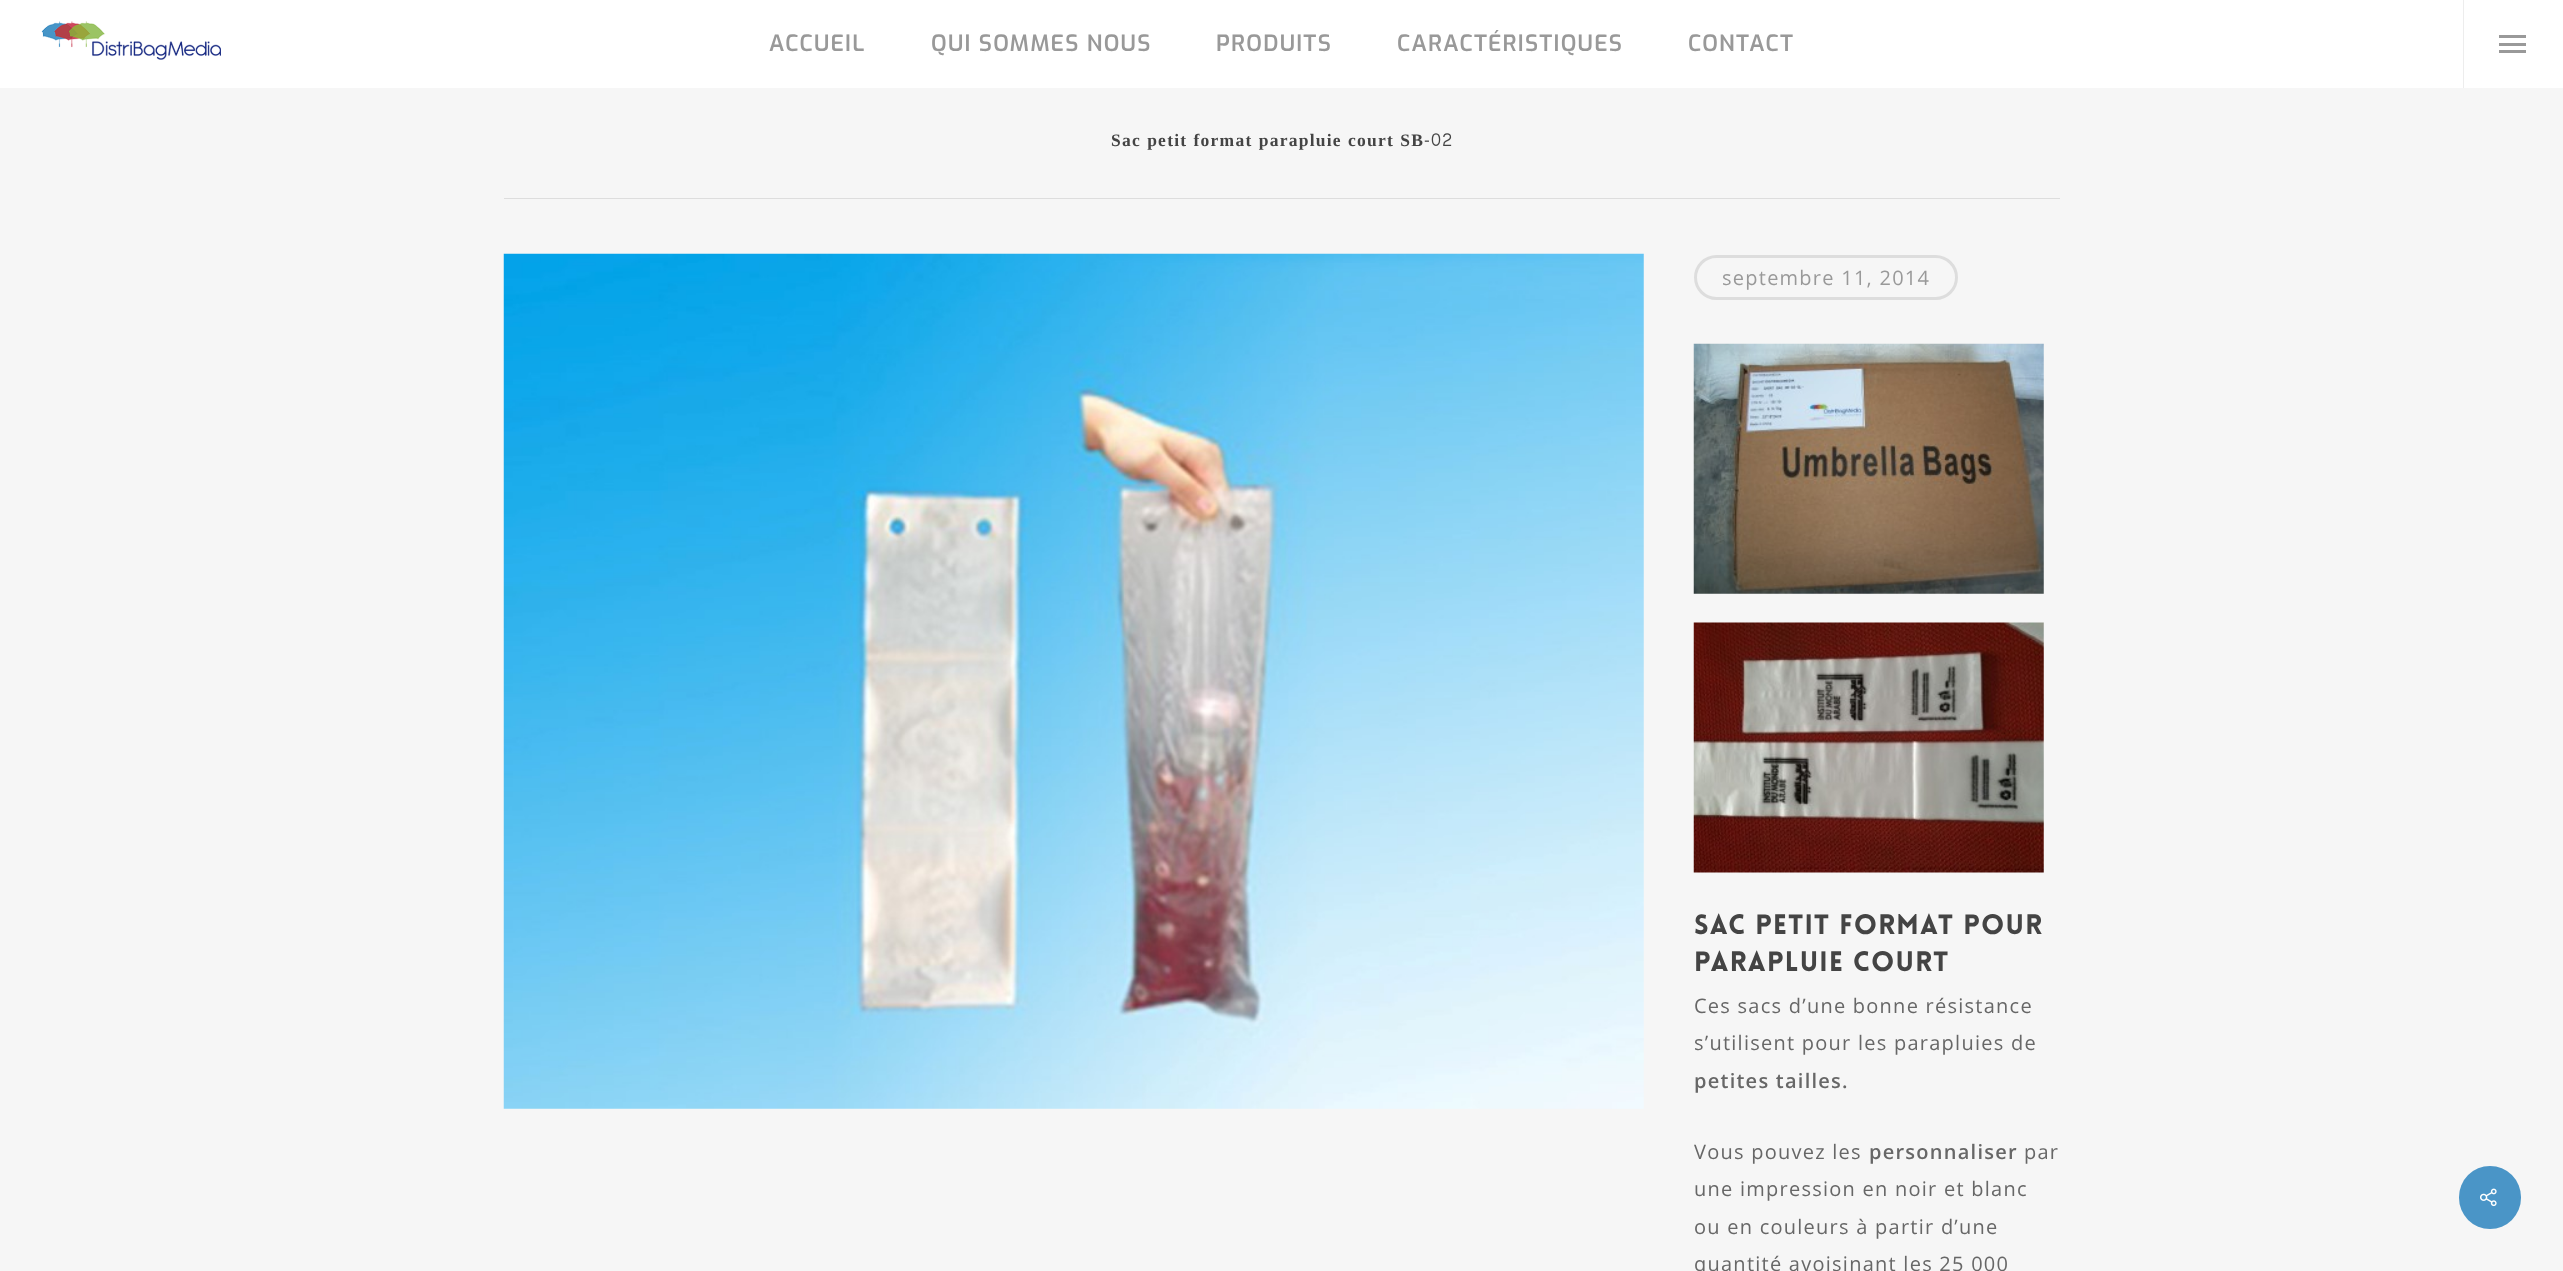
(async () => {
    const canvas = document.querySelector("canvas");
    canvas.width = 2563;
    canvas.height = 1271;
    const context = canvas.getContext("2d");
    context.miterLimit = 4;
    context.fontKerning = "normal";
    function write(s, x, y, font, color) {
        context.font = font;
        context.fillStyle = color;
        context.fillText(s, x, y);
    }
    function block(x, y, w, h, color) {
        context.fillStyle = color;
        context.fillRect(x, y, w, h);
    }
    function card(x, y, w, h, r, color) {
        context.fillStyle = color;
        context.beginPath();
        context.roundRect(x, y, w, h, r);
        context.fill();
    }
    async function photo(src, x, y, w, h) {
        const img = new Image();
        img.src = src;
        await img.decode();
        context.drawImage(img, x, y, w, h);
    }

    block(0, 0, 2563, 1271, "rgb(246, 246, 246)");
    block(0, 0, 2563, 88, "rgb(255, 255, 255)");
    await photo("media/1.png", 41, 21, 180, 39);
    context.letterSpacing = "1.25px";
    write("ACCUEIL", 769, 51, "600 22.5px Exo", "rgb(153, 153, 153)");
    write("QUI SOMMES NOUS", 931, 51, "600 22.5px Exo", "rgb(153, 153, 153)");
    write("PRODUITS", 1216, 51, "600 22.5px Exo", "rgb(153, 153, 153)");
    write("CARACTÉRISTIQUES", 1397, 51, "600 22.5px Exo", "rgb(153, 153, 153)");
    write("CONTACT", 1688, 51, "600 22.5px Exo", "rgb(153, 153, 153)");
    block(2463, 0, 1, 88, "rgb(237, 237, 237)");
    block(2499, 35, 27, 3, "rgb(153, 153, 153)");
    block(2499, 50, 27, 3, "rgb(153, 153, 153)");
    block(2499, 43, 27, 3, "rgb(153, 153, 153)");
    block(504, 198, 1556, 1, "rgb(221, 221, 221)");
    context.wordSpacing = "0.5px";
    write("Sac petit format parapluie court SB", 1111, 146, "bold 17.5px Liberation Serif", "rgb(68, 68, 68)");
    context.wordSpacing = "0px";
    write("-02", 1424, 146, "bold 17.5px Content", "rgb(68, 68, 68)");
    await photo("media/2.png", 503, 253, 1141, 856);
    context.beginPath();
    context.roundRect(1695.5, 256.5, 261, 42, 21);
    context.strokeStyle = "rgb(221, 221, 221)";
    context.lineWidth = 3;
    context.stroke();
    write("septembre 11, 2014", 1722, 285, "20px Open Sans", "rgb(153, 153, 153)");
    await photo("media/3.png", 1693, 343, 351, 251);
    await photo("media/4.png", 1693, 622, 351, 251);
    write("Sac petit format pour", 1694, 934, "900 27.5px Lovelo", "rgb(68, 68, 68)");
    write("parapluie court", 1694, 971, "900 27.5px Lovelo", "rgb(68, 68, 68)");
    write("Ces sacs d’une bonne résistance", 1694, 1013, "20px Open Sans", "rgb(103, 103, 103)");
    write("s’utilisent pour les parapluies de", 1694, 1050, "20px Open Sans", "rgb(103, 103, 103)");
    write("petites tailles.", 1694, 1088, "600 20px Open Sans", "rgb(103, 103, 103)");
    write("Vous pouvez les", 1694, 1159, "20px Open Sans", "rgb(103, 103, 103)");
    write("personnaliser", 1869, 1159, "600 20px Open Sans", "rgb(103, 103, 103)");
    write("par", 2024, 1159, "20px Open Sans", "rgb(103, 103, 103)");
    write("une impression en noir et blanc", 1694, 1196, "20px Open Sans", "rgb(103, 103, 103)");
    write("ou en couleurs à partir d’une", 1694, 1234, "20px Open Sans", "rgb(103, 103, 103)");
    write("quantité avoisinant les 25 000", 1694, 1271, "20px Open Sans", "rgb(103, 103, 103)");
    card(2459, 1166, 62, 63, 31, "rgb(74, 149, 199)");
    await photo("media/5.png", 2480, 1188, 17, 19);
})();
